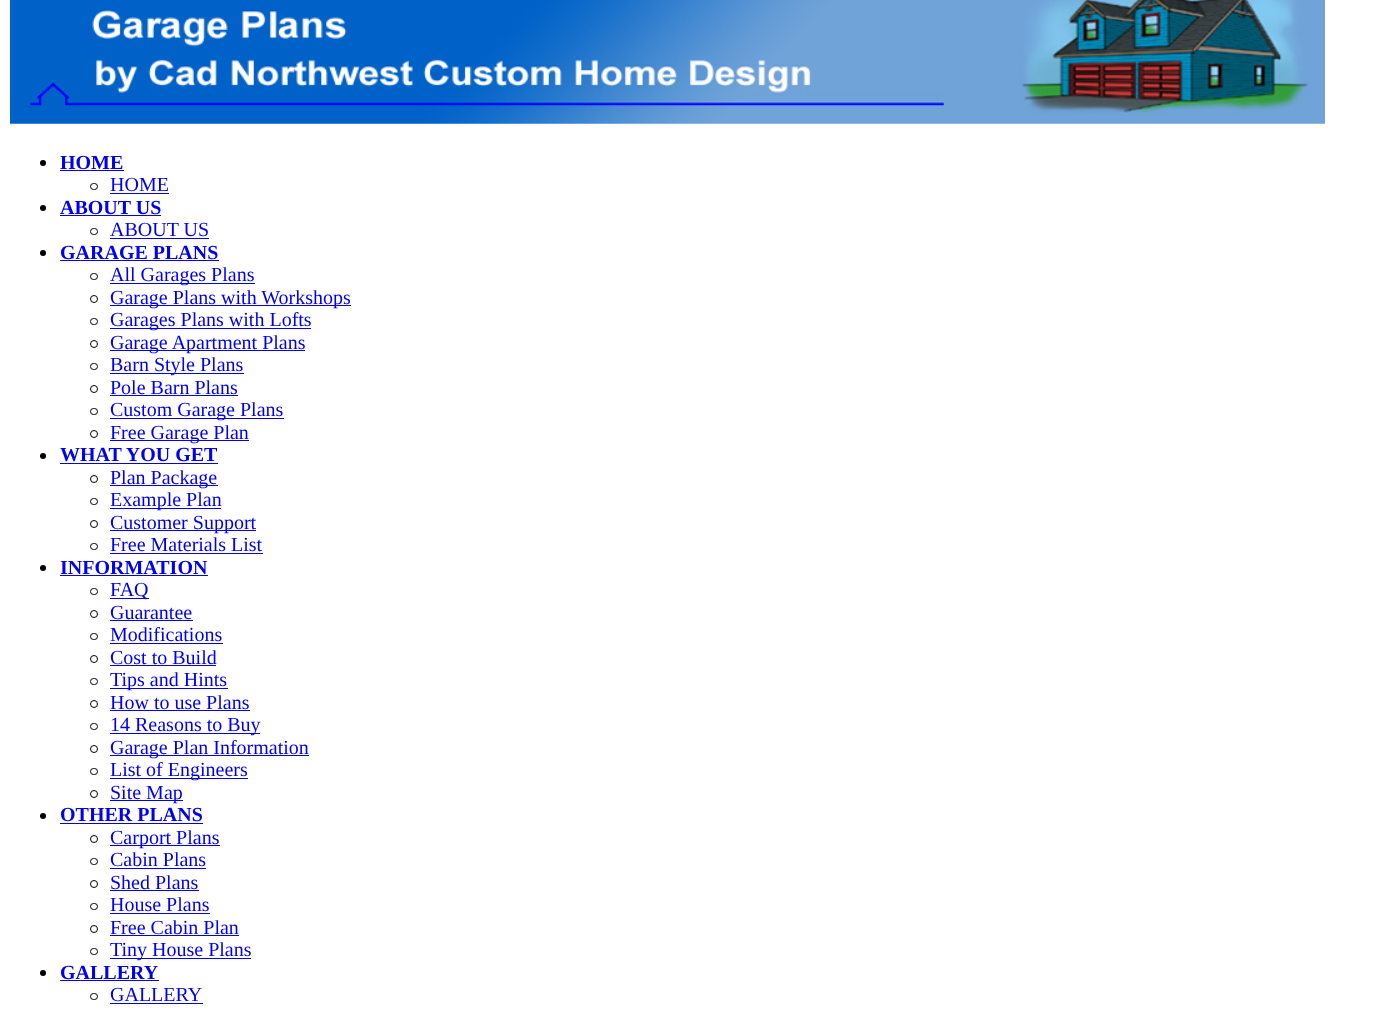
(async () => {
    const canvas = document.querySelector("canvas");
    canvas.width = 1399;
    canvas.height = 1029;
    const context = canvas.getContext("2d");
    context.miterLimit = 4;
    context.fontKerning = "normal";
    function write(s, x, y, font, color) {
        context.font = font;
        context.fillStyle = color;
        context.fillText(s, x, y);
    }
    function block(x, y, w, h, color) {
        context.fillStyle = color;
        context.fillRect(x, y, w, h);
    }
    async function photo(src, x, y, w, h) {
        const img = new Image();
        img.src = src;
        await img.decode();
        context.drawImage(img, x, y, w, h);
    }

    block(0, 0, 1399, 1029, "rgb(255, 255, 255)");
    await photo("media/1.png", 10, 0, 1315, 124);
    context.fillStyle = "rgb(0, 0, 0)";
    context.beginPath();
    context.arc(43, 163, 3, 0, Math.PI * 2);
    context.fill();
    write("HOME", 60, 169, "bold 20px Liberation Serif", "rgb(0, 0, 238)");
    block(60, 170, 64, 1, "rgb(0, 0, 238)");
    context.beginPath();
    context.roundRect(90.5, 183.5, 7, 6, 3);
    context.strokeStyle = "rgb(0, 0, 0)";
    context.stroke();
    write("HOME", 110, 191, "20px Liberation Serif", "rgb(0, 0, 238)");
    block(110, 193, 59, 1, "rgb(0, 0, 238)");
    context.fillStyle = "rgb(0, 0, 0)";
    context.beginPath();
    context.arc(43, 208, 3, 0, Math.PI * 2);
    context.fill();
    write("ABOUT US", 60, 214, "bold 20px Liberation Serif", "rgb(0, 0, 238)");
    block(60, 215, 101, 1, "rgb(0, 0, 238)");
    context.beginPath();
    context.roundRect(90.5, 228.5, 7, 6, 3);
    context.stroke();
    write("ABOUT US", 110, 236, "20px Liberation Serif", "rgb(0, 0, 238)");
    block(110, 238, 99, 1, "rgb(0, 0, 238)");
    context.fillStyle = "rgb(0, 0, 0)";
    context.beginPath();
    context.arc(43, 253, 3, 0, Math.PI * 2);
    context.fill();
    write("GARAGE PLANS", 60, 259, "bold 20px Liberation Serif", "rgb(0, 0, 238)");
    block(60, 260, 159, 1, "rgb(0, 0, 238)");
    context.beginPath();
    context.roundRect(90.5, 273.5, 7, 6, 3);
    context.stroke();
    block(110, 283, 145, 1, "rgb(0, 0, 238)");
    write("All Garages Plans", 110, 281, "20px Liberation Serif", "rgb(0, 0, 238)");
    context.beginPath();
    context.arc(94, 299, 3.5, 0, Math.PI * 2);
    context.stroke();
    block(110, 305, 241, 1, "rgb(0, 0, 238)");
    write("Garage Plans with Workshops", 110, 304, "20px Liberation Serif", "rgb(0, 0, 238)");
    context.beginPath();
    context.roundRect(90.5, 318.5, 7, 6, 3);
    context.stroke();
    block(110, 328, 201, 1, "rgb(0, 0, 238)");
    write("Garages Plans with Lofts", 110, 326, "20px Liberation Serif", "rgb(0, 0, 238)");
    context.beginPath();
    context.arc(94, 344, 3.5, 0, Math.PI * 2);
    context.stroke();
    block(110, 350, 195, 1, "rgb(0, 0, 238)");
    write("Garage Apartment Plans", 110, 349, "20px Liberation Serif", "rgb(0, 0, 238)");
    context.beginPath();
    context.roundRect(90.5, 363.5, 7, 6, 3);
    context.stroke();
    block(110, 373, 134, 1, "rgb(0, 0, 238)");
    write("Barn Style Plans", 110, 371, "20px Liberation Serif", "rgb(0, 0, 238)");
    context.beginPath();
    context.arc(94, 389, 3.5, 0, Math.PI * 2);
    context.stroke();
    write("Pole Barn Plans", 110, 394, "20px Liberation Serif", "rgb(0, 0, 238)");
    block(110, 395, 128, 1, "rgb(0, 0, 238)");
    context.beginPath();
    context.roundRect(90.5, 408.5, 7, 6, 3);
    context.stroke();
    block(110, 418, 174, 1, "rgb(0, 0, 238)");
    write("Custom Garage Plans", 110, 416, "20px Liberation Serif", "rgb(0, 0, 238)");
    context.beginPath();
    context.arc(94, 434, 3.5, 0, Math.PI * 2);
    context.stroke();
    block(110, 440, 139, 1, "rgb(0, 0, 238)");
    write("Free Garage Plan", 110, 439, "20px Liberation Serif", "rgb(0, 0, 238)");
    context.fillStyle = "rgb(0, 0, 0)";
    context.beginPath();
    context.arc(43, 456, 3, 0, Math.PI * 2);
    context.fill();
    write("WHAT YOU GET", 60, 461, "bold 20px Liberation Serif", "rgb(0, 0, 238)");
    block(60, 463, 158, 1, "rgb(0, 0, 238)");
    context.beginPath();
    context.arc(94, 479, 3.5, 0, Math.PI * 2);
    context.stroke();
    block(110, 485, 108, 1, "rgb(0, 0, 238)");
    write("Plan Package", 110, 484, "20px Liberation Serif", "rgb(0, 0, 238)");
    context.beginPath();
    context.roundRect(90.5, 498.5, 7, 6, 3);
    context.stroke();
    block(110, 508, 111, 1, "rgb(0, 0, 238)");
    write("Example Plan", 110, 506, "20px Liberation Serif", "rgb(0, 0, 238)");
    context.beginPath();
    context.arc(94, 524, 3.5, 0, Math.PI * 2);
    context.stroke();
    block(110, 530, 146, 1, "rgb(0, 0, 238)");
    write("Customer Support", 110, 529, "20px Liberation Serif", "rgb(0, 0, 238)");
    context.beginPath();
    context.roundRect(90.5, 543.5, 7, 6, 3);
    context.stroke();
    write("Free Materials List", 110, 551, "20px Liberation Serif", "rgb(0, 0, 238)");
    block(110, 553, 153, 1, "rgb(0, 0, 238)");
    context.fillStyle = "rgb(0, 0, 0)";
    context.beginPath();
    context.arc(43, 568, 3, 0, Math.PI * 2);
    context.fill();
    write("INFORMATION", 60, 574, "bold 20px Liberation Serif", "rgb(0, 0, 238)");
    block(60, 575, 148, 1, "rgb(0, 0, 238)");
    context.beginPath();
    context.roundRect(90.5, 588.5, 7, 6, 3);
    context.stroke();
    block(110, 598, 39, 1, "rgb(0, 0, 238)");
    write("FAQ", 110, 596, "20px Liberation Serif", "rgb(0, 0, 238)");
    context.beginPath();
    context.arc(94, 614, 3.5, 0, Math.PI * 2);
    context.stroke();
    write("Guarantee", 110, 619, "20px Liberation Serif", "rgb(0, 0, 238)");
    block(110, 620, 83, 1, "rgb(0, 0, 238)");
    context.beginPath();
    context.roundRect(90.5, 633.5, 7, 6, 3);
    context.stroke();
    write("Modifications", 110, 641, "20px Liberation Serif", "rgb(0, 0, 238)");
    block(110, 643, 113, 1, "rgb(0, 0, 238)");
    context.beginPath();
    context.arc(94, 659, 3.5, 0, Math.PI * 2);
    context.stroke();
    write("Cost to Build", 110, 664, "20px Liberation Serif", "rgb(0, 0, 238)");
    block(110, 665, 106, 1, "rgb(0, 0, 238)");
    context.beginPath();
    context.roundRect(90.5, 678.5, 7, 6, 3);
    context.stroke();
    block(110, 688, 118, 1, "rgb(0, 0, 238)");
    write("Tips and Hints", 110, 686, "20px Liberation Serif", "rgb(0, 0, 238)");
    context.beginPath();
    context.arc(94, 704, 3.5, 0, Math.PI * 2);
    context.stroke();
    write("How to use Plans", 110, 709, "20px Liberation Serif", "rgb(0, 0, 238)");
    block(110, 710, 140, 1, "rgb(0, 0, 238)");
    context.beginPath();
    context.roundRect(90.5, 723.5, 7, 6, 3);
    context.stroke();
    block(110, 733, 150, 1, "rgb(0, 0, 238)");
    write("14 Reasons to Buy", 110, 731, "20px Liberation Serif", "rgb(0, 0, 238)");
    context.beginPath();
    context.arc(94, 749, 3.5, 0, Math.PI * 2);
    context.stroke();
    block(110, 755, 199, 1, "rgb(0, 0, 238)");
    write("Garage Plan Information", 110, 754, "20px Liberation Serif", "rgb(0, 0, 238)");
    context.beginPath();
    context.roundRect(90.5, 768.5, 7, 6, 3);
    context.stroke();
    block(110, 778, 138, 1, "rgb(0, 0, 238)");
    write("List of Engineers", 110, 776, "20px Liberation Serif", "rgb(0, 0, 238)");
    context.beginPath();
    context.arc(94, 794, 3.5, 0, Math.PI * 2);
    context.stroke();
    block(110, 800, 73, 1, "rgb(0, 0, 238)");
    write("Site Map", 110, 799, "20px Liberation Serif", "rgb(0, 0, 238)");
    context.fillStyle = "rgb(0, 0, 0)";
    context.beginPath();
    context.arc(43, 816, 3, 0, Math.PI * 2);
    context.fill();
    write("OTHER PLANS", 60, 821, "bold 20px Liberation Serif", "rgb(0, 0, 238)");
    block(60, 823, 143, 1, "rgb(0, 0, 238)");
    context.beginPath();
    context.arc(94, 839, 3.5, 0, Math.PI * 2);
    context.stroke();
    block(110, 845, 110, 1, "rgb(0, 0, 238)");
    write("Carport Plans", 110, 844, "20px Liberation Serif", "rgb(0, 0, 238)");
    context.beginPath();
    context.roundRect(90.5, 858.5, 7, 6, 3);
    context.stroke();
    write("Cabin Plans", 110, 866, "20px Liberation Serif", "rgb(0, 0, 238)");
    block(110, 868, 96, 1, "rgb(0, 0, 238)");
    context.beginPath();
    context.arc(94, 884, 3.5, 0, Math.PI * 2);
    context.stroke();
    write("Shed Plans", 110, 889, "20px Liberation Serif", "rgb(0, 0, 238)");
    block(110, 890, 89, 1, "rgb(0, 0, 238)");
    context.beginPath();
    context.roundRect(90.5, 903.5, 7, 6, 3);
    context.stroke();
    write("House Plans", 110, 911, "20px Liberation Serif", "rgb(0, 0, 238)");
    block(110, 913, 100, 1, "rgb(0, 0, 238)");
    context.beginPath();
    context.arc(94, 929, 3.5, 0, Math.PI * 2);
    context.stroke();
    write("Free Cabin Plan", 110, 934, "20px Liberation Serif", "rgb(0, 0, 238)");
    block(110, 935, 129, 1, "rgb(0, 0, 238)");
    context.beginPath();
    context.roundRect(90.5, 948.5, 7, 6, 3);
    context.stroke();
    block(110, 958, 141, 1, "rgb(0, 0, 238)");
    write("Tiny House Plans", 110, 956, "20px Liberation Serif", "rgb(0, 0, 238)");
    context.fillStyle = "rgb(0, 0, 0)";
    context.beginPath();
    context.arc(43, 973, 3, 0, Math.PI * 2);
    context.fill();
    write("GALLERY", 60, 979, "bold 20px Liberation Serif", "rgb(0, 0, 238)");
    block(60, 980, 99, 1, "rgb(0, 0, 238)");
    context.beginPath();
    context.roundRect(90.5, 993.5, 7, 6, 3);
    context.stroke();
    write("GALLERY", 110, 1001, "20px Liberation Serif", "rgb(0, 0, 238)");
    block(110, 1003, 93, 1, "rgb(0, 0, 238)");
})();
